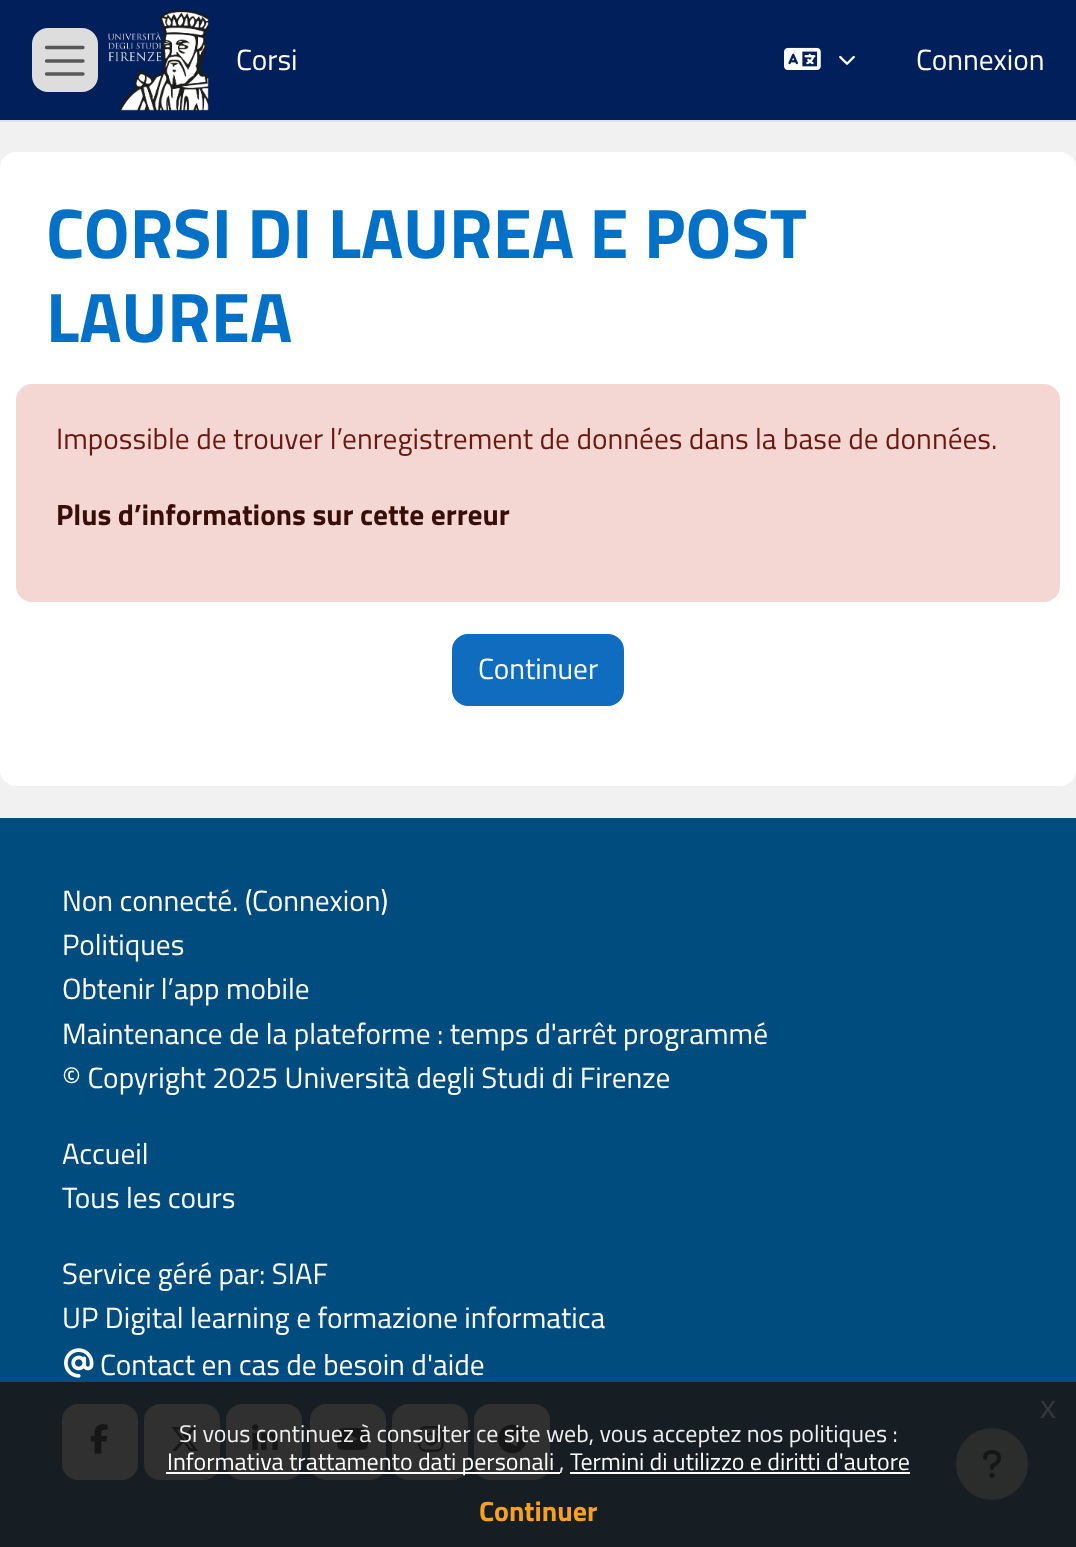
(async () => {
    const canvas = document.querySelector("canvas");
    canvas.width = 1076;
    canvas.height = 1547;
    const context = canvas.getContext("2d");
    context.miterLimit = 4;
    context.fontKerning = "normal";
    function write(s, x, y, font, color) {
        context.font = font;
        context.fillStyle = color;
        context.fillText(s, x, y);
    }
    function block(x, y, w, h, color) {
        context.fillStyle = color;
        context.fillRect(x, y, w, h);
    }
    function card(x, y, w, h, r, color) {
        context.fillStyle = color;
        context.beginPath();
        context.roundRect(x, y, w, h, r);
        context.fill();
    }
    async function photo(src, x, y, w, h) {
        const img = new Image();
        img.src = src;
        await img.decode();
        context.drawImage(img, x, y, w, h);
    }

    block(0, 0, 1076, 1547, "rgb(241, 241, 241)");
    block(0, 0, 1076, 120, "rgb(0, 31, 91)");
    block(0, 120, 1076, 2, "rgb(222, 226, 230)");
    card(32, 28, 66, 64, 16, "rgb(221, 221, 221)");
    context.beginPath();
    context.moveTo(46.5, 47.5);
    context.lineTo(83, 47.5);
    context.moveTo(46.5, 61);
    context.lineTo(83, 61);
    context.moveTo(46.5, 74);
    context.lineTo(83, 74);
    context.strokeStyle = "rgb(88, 88, 88)";
    context.lineWidth = 3.3;
    context.lineCap = "round";
    context.stroke();
    await photo("media/1.png", 108, 9, 101, 102);
    write("Corsi", 236, 70, "29.4px Titillium Web", "rgb(255, 255, 255)");
    await photo("media/2.png", 784, 47, 37, 23);
    await photo("media/3.png", 839, 55, 16, 10);
    write("Connexion", 916, 70, "29.4px Titillium Web", "rgb(255, 255, 255)");
    card(0, 152, 1076, 634, 16, "rgb(255, 255, 255)");
    write("CORSI DI LAUREA E POST", 46, 258, "bold 70.4px Titillium Web", "rgb(0, 113, 198)");
    write("LAUREA", 46, 342, "bold 70.4px Titillium Web", "rgb(0, 113, 198)");
    card(16, 384, 1044, 218, 16, "rgb(244, 214, 210)");
    write("Impossible de trouver l’enregistrement de données dans la base de données.", 56, 449, "29.4px Titillium Web", "rgb(105, 25, 17)");
    write("Plus d’informations sur cette erreur", 56, 525, "bold 29.4px Titillium Web", "rgb(57, 14, 9)");
    context.fillStyle = "rgb(15, 108, 191)";
    context.beginPath();
    context.roundRect(453, 635, 170, 70, 15);
    context.fill();
    context.strokeStyle = "rgb(15, 108, 191)";
    context.lineWidth = 2;
    context.stroke();
    write("Continuer", 478, 679, "29.4px Titillium Web", "rgb(255, 255, 255)");
    block(0, 818, 1076, 564, "rgb(0, 76, 127)");
    block(0, 1382, 1076, 165, "rgb(23, 30, 35)");
    write("Non connecté. (", 62, 911, "29.4px Titillium Web", "rgb(255, 255, 255)");
    write("Connexion)", 252, 911, "29.4px Titillium Web", "rgb(255, 255, 255)");
    write("Politiques", 62, 955, "29.4px Titillium Web", "rgb(255, 255, 255)");
    write("Obtenir l’app mobile", 62, 999, "29.4px Titillium Web", "rgb(255, 255, 255)");
    write("Maintenance de la plateforme : temps d'arrêt programmé", 62, 1044, "29.4px Titillium Web", "rgb(255, 255, 255)");
    write("© Copyright 2025 Università degli Studi di Firenze", 62, 1088, "29.4px Titillium Web", "rgb(255, 255, 255)");
    write("Accueil", 62, 1164, "29.4px Titillium Web", "rgb(255, 255, 255)");
    write("Tous les cours", 62, 1208, "29.4px Titillium Web", "rgb(255, 255, 255)");
    write("Service géré par: SIAF", 62, 1284, "29.4px Titillium Web", "rgb(255, 255, 255)");
    write("UP Digital learning e formazione informatica", 62, 1328, "29.4px Titillium Web", "rgb(255, 255, 255)");
    await photo("media/4.png", 64, 1348, 30, 30);
    write("Contact en cas de besoin d'aide", 100, 1375, "29.4px Titillium Web", "rgb(255, 255, 255)");
    card(62, 1404, 76, 76, 16, "rgb(48, 48, 48)");
    await photo("media/5.png", 90, 1424, 18, 30);
    card(144, 1404, 76, 76, 16, "rgb(48, 48, 48)");
    await photo("media/6.png", 171, 1427, 27, 24);
    card(226, 1404, 76, 76, 16, "rgb(48, 48, 48)");
    await photo("media/7.png", 252, 1424, 26, 26);
    card(310, 1404, 76, 76, 16, "rgb(48, 48, 48)");
    await photo("media/8.png", 336, 1427, 33, 23);
    card(392, 1404, 76, 76, 16, "rgb(48, 48, 48)");
    await photo("media/9.png", 418, 1426, 26, 26);
    card(474, 1404, 76, 76, 16, "rgb(48, 48, 48)");
    await photo("media/10.png", 498, 1424, 29, 30);
    context.fillStyle = "rgb(43, 44, 44)";
    context.beginPath();
    context.arc(992, 1464, 36, 0, Math.PI * 2);
    context.fill();
    await photo("media/11.png", 983, 1450, 18, 28);
    write("x", 1040, 1418, "32px Liberation Sans", "rgb(50, 56, 61)");
    write("Si vous continuez à consulter ce site web, vous acceptez nos politiques :", 179, 1442, "24px Titillium Web", "rgb(239, 239, 239)");
    block(166, 1472, 394, 2, "rgb(255, 255, 255)");
    write("Informativa trattamento dati personali", 167, 1470, "24px Titillium Web", "rgb(255, 255, 255)");
    write(",", 559, 1470, "24px Titillium Web", "rgb(239, 239, 239)");
    block(570, 1472, 340, 2, "rgb(255, 255, 255)");
    write("Termini di utilizzo e diritti d'autore", 570, 1470, "24px Titillium Web", "rgb(255, 255, 255)");
    write("Continuer", 479, 1521, "bold 28px Titillium Web", "rgb(246, 162, 29)");
})();
